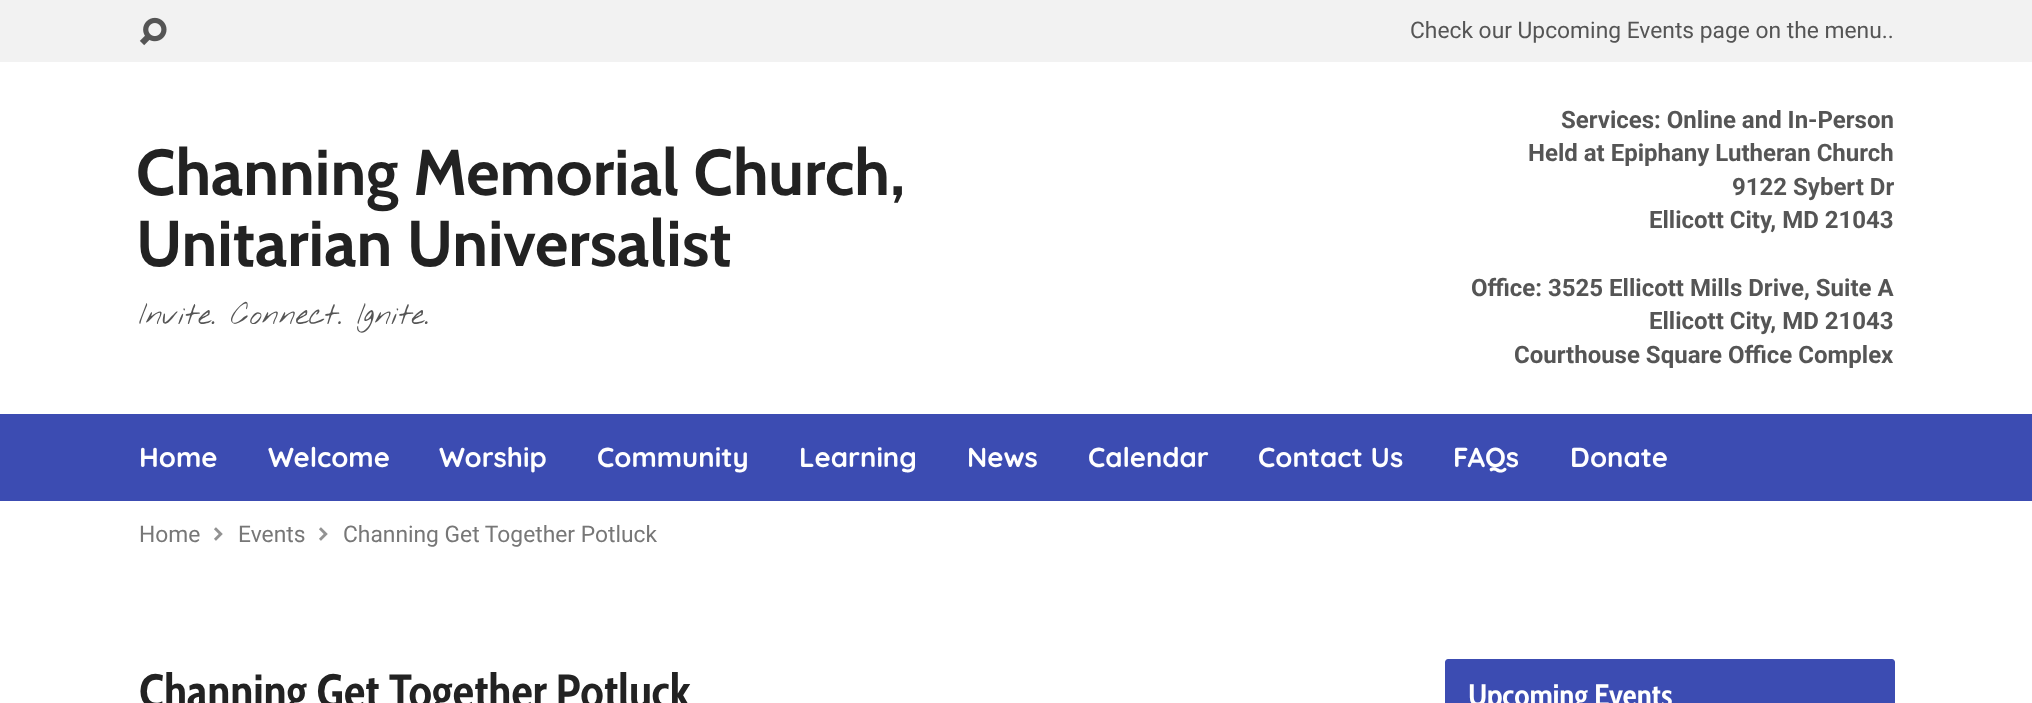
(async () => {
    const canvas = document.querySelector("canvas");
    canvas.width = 2032;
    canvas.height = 703;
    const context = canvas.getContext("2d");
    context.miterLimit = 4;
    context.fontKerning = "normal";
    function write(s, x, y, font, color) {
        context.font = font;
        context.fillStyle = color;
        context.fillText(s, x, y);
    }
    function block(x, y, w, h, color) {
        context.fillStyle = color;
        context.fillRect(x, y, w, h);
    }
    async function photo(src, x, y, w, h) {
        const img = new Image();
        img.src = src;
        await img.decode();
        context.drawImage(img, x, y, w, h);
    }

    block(0, 0, 2032, 703, "rgb(255, 255, 255)");
    block(0, 0, 2032, 62, "rgb(242, 242, 242)");
    await photo("media/1.png", 139, 17, 28, 29);
    write("Check our Upcoming Events page on the menu..", 1410, 38, "22.8px Roboto", "rgb(85, 85, 85)");
    write("Channing Memorial Church,", 136, 195, "bold 64.75px Cabin", "rgb(34, 34, 34)");
    write("Unitarian Universalist", 136, 266, "bold 64.75px Cabin", "rgb(34, 34, 34)");
    write("Invite. Connect. Ignite.", 139, 324, "100 30px Nothing You Could Do", "rgb(85, 85, 85)");
    write("Services: Online and In-Person", 1561, 128, "bold 24px Roboto", "rgb(85, 85, 85)");
    write("Held at Epiphany Lutheran Church", 1528, 161, "bold 24px Roboto", "rgb(85, 85, 85)");
    write("9122 Sybert Dr", 1732, 195, "bold 24px Roboto", "rgb(85, 85, 85)");
    write("Ellicott City, MD 21043", 1649, 228, "bold 24px Roboto", "rgb(85, 85, 85)");
    write("Office: 3525 Ellicott Mills Drive, Suite A", 1471, 296, "bold 24px Roboto", "rgb(85, 85, 85)");
    write("Ellicott City, MD 21043", 1649, 329, "bold 24px Roboto", "rgb(85, 85, 85)");
    write("Courthouse Square Office Complex", 1514, 363, "bold 24px Roboto", "rgb(85, 85, 85)");
    block(0, 414, 2032, 87, "rgb(60, 76, 178)");
    write("Home", 139, 467, "bold 27.5px Quicksand", "rgb(255, 255, 255)");
    write("Welcome", 268, 467, "bold 27.5px Quicksand", "rgb(255, 255, 255)");
    write("Worship", 439, 467, "bold 27.5px Quicksand", "rgb(255, 255, 255)");
    write("Community", 597, 467, "bold 27.5px Quicksand", "rgb(255, 255, 255)");
    write("Learning", 799, 467, "bold 27.5px Quicksand", "rgb(255, 255, 255)");
    write("News", 967, 467, "bold 27.5px Quicksand", "rgb(255, 255, 255)");
    write("Calendar", 1088, 467, "bold 27.5px Quicksand", "rgb(255, 255, 255)");
    write("Contact Us", 1258, 467, "bold 27.5px Quicksand", "rgb(255, 255, 255)");
    write("FAQs", 1453, 467, "bold 27.5px Quicksand", "rgb(255, 255, 255)");
    write("Donate", 1570, 467, "bold 27.5px Quicksand", "rgb(255, 255, 255)");
    write("Home", 139, 542, "22.8px Roboto", "rgb(119, 119, 119)");
    await photo("media/2.png", 214, 527, 9, 14);
    write("Events", 238, 542, "22.8px Roboto", "rgb(119, 119, 119)");
    await photo("media/2.png", 319, 527, 9, 14);
    write("Channing Get Together Potluck", 343, 542, "22.8px Roboto", "rgb(119, 119, 119)");
    write("Channing Get Together Potluck", 139, 708, "bold 48px Cabin Condensed", "rgb(34, 34, 34)");
    context.fillStyle = "rgb(60, 76, 178)";
    context.beginPath();
    context.moveTo(1448, 659);
    context.lineTo(1892, 659);
    context.bezierCurveTo(1893.5, 659, 1895, 660.5, 1895, 662);
    context.lineTo(1895, 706);
    context.lineTo(1445, 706);
    context.lineTo(1445, 662);
    context.bezierCurveTo(1445, 660.5, 1446.5, 659, 1448, 659);
    context.closePath();
    context.fill();
    write("Upcoming Events", 1468, 706, "bold 31.25px Cabin Condensed", "rgb(255, 255, 255)");
})();
